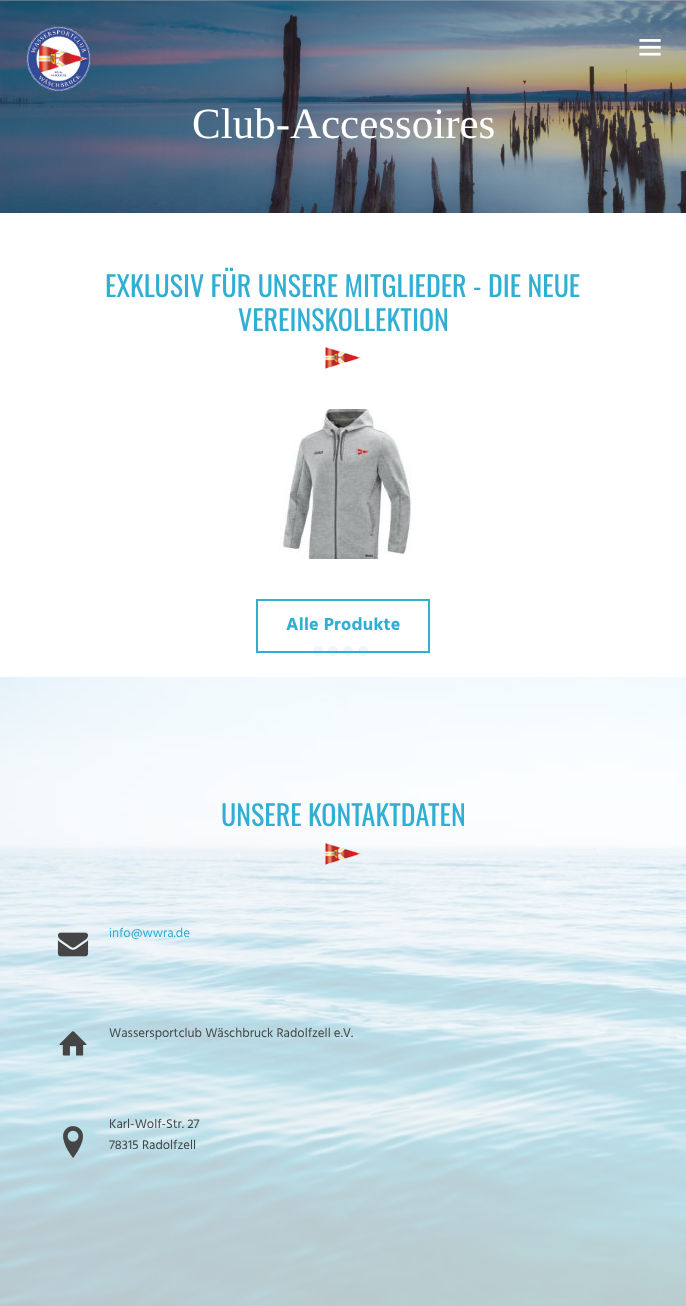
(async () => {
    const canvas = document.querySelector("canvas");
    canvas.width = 686;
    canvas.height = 1306;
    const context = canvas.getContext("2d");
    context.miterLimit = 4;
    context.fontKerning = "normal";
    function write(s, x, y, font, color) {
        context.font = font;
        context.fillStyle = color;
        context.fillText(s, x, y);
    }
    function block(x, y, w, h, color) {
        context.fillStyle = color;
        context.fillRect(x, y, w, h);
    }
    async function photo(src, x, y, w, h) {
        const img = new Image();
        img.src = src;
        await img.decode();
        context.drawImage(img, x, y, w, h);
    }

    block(0, 0, 686, 1306, "rgb(255, 255, 255)");
    await photo("media/1.png", 0, 0, 686, 213);
    block(0, 0, 686, 1, "rgba(179, 179, 179, 0.4)");
    await photo("media/2.png", 26, 26, 65, 65);
    await photo("media/3.png", 639, 39, 22, 17);
    write("Club-Accessoires", 192, 138, "43px Liberation Serif", "rgb(255, 255, 255)");
    write("EXKLUSIV FÜR UNSERE MITGLIEDER - DIE NEUE", 105, 297, "28px Oswald", "rgb(48, 174, 211)");
    write("VEREINSKOLLEKTION", 238, 331, "28px Oswald", "rgb(48, 174, 211)");
    await photo("media/4.png", 325, 347, 36, 22);
    await photo("media/5.png", 279, 409, 133, 150);
    context.strokeStyle = "rgb(48, 174, 211)";
    context.lineWidth = 2;
    context.strokeRect(257, 600, 172, 52);
    context.letterSpacing = "0.25px";
    write("Alle Produkte", 286, 630, "bold 18px Hind", "rgb(48, 174, 211)");
    await photo("media/6.png", 0, 677, 686, 629);
    context.letterSpacing = "0px";
    write("UNSERE KONTAKTDATEN", 221, 826, "28px Oswald", "rgb(48, 174, 211)");
    await photo("media/7.png", 325, 843, 36, 22);
    await photo("media/8.png", 57, 932, 32, 25);
    write("info@wwra.de", 109, 937, "13px Hind", "rgb(48, 174, 211)");
    await photo("media/9.png", 59, 1031, 28, 25);
    write("Wassersportclub Wäschbruck Radolfzell e.V.", 109, 1037, "13px Hind", "rgb(69, 69, 69)");
    await photo("media/10.png", 63, 1126, 20, 32);
    write("Karl-Wolf-Str. 27", 109, 1128, "13px Hind", "rgb(69, 69, 69)");
    write("78315 Radolfzell", 109, 1149, "13px Hind", "rgb(69, 69, 69)");
    context.fillStyle = "rgba(28, 166, 207, 0.09)";
    context.beginPath();
    context.arc(318, 651, 5, 0, Math.PI * 2);
    context.fill();
    context.beginPath();
    context.arc(333, 651, 5, 0, Math.PI * 2);
    context.fill();
    context.beginPath();
    context.arc(348, 651, 5, 0, Math.PI * 2);
    context.fill();
    context.beginPath();
    context.arc(363, 651, 5, 0, Math.PI * 2);
    context.fill();
})();
